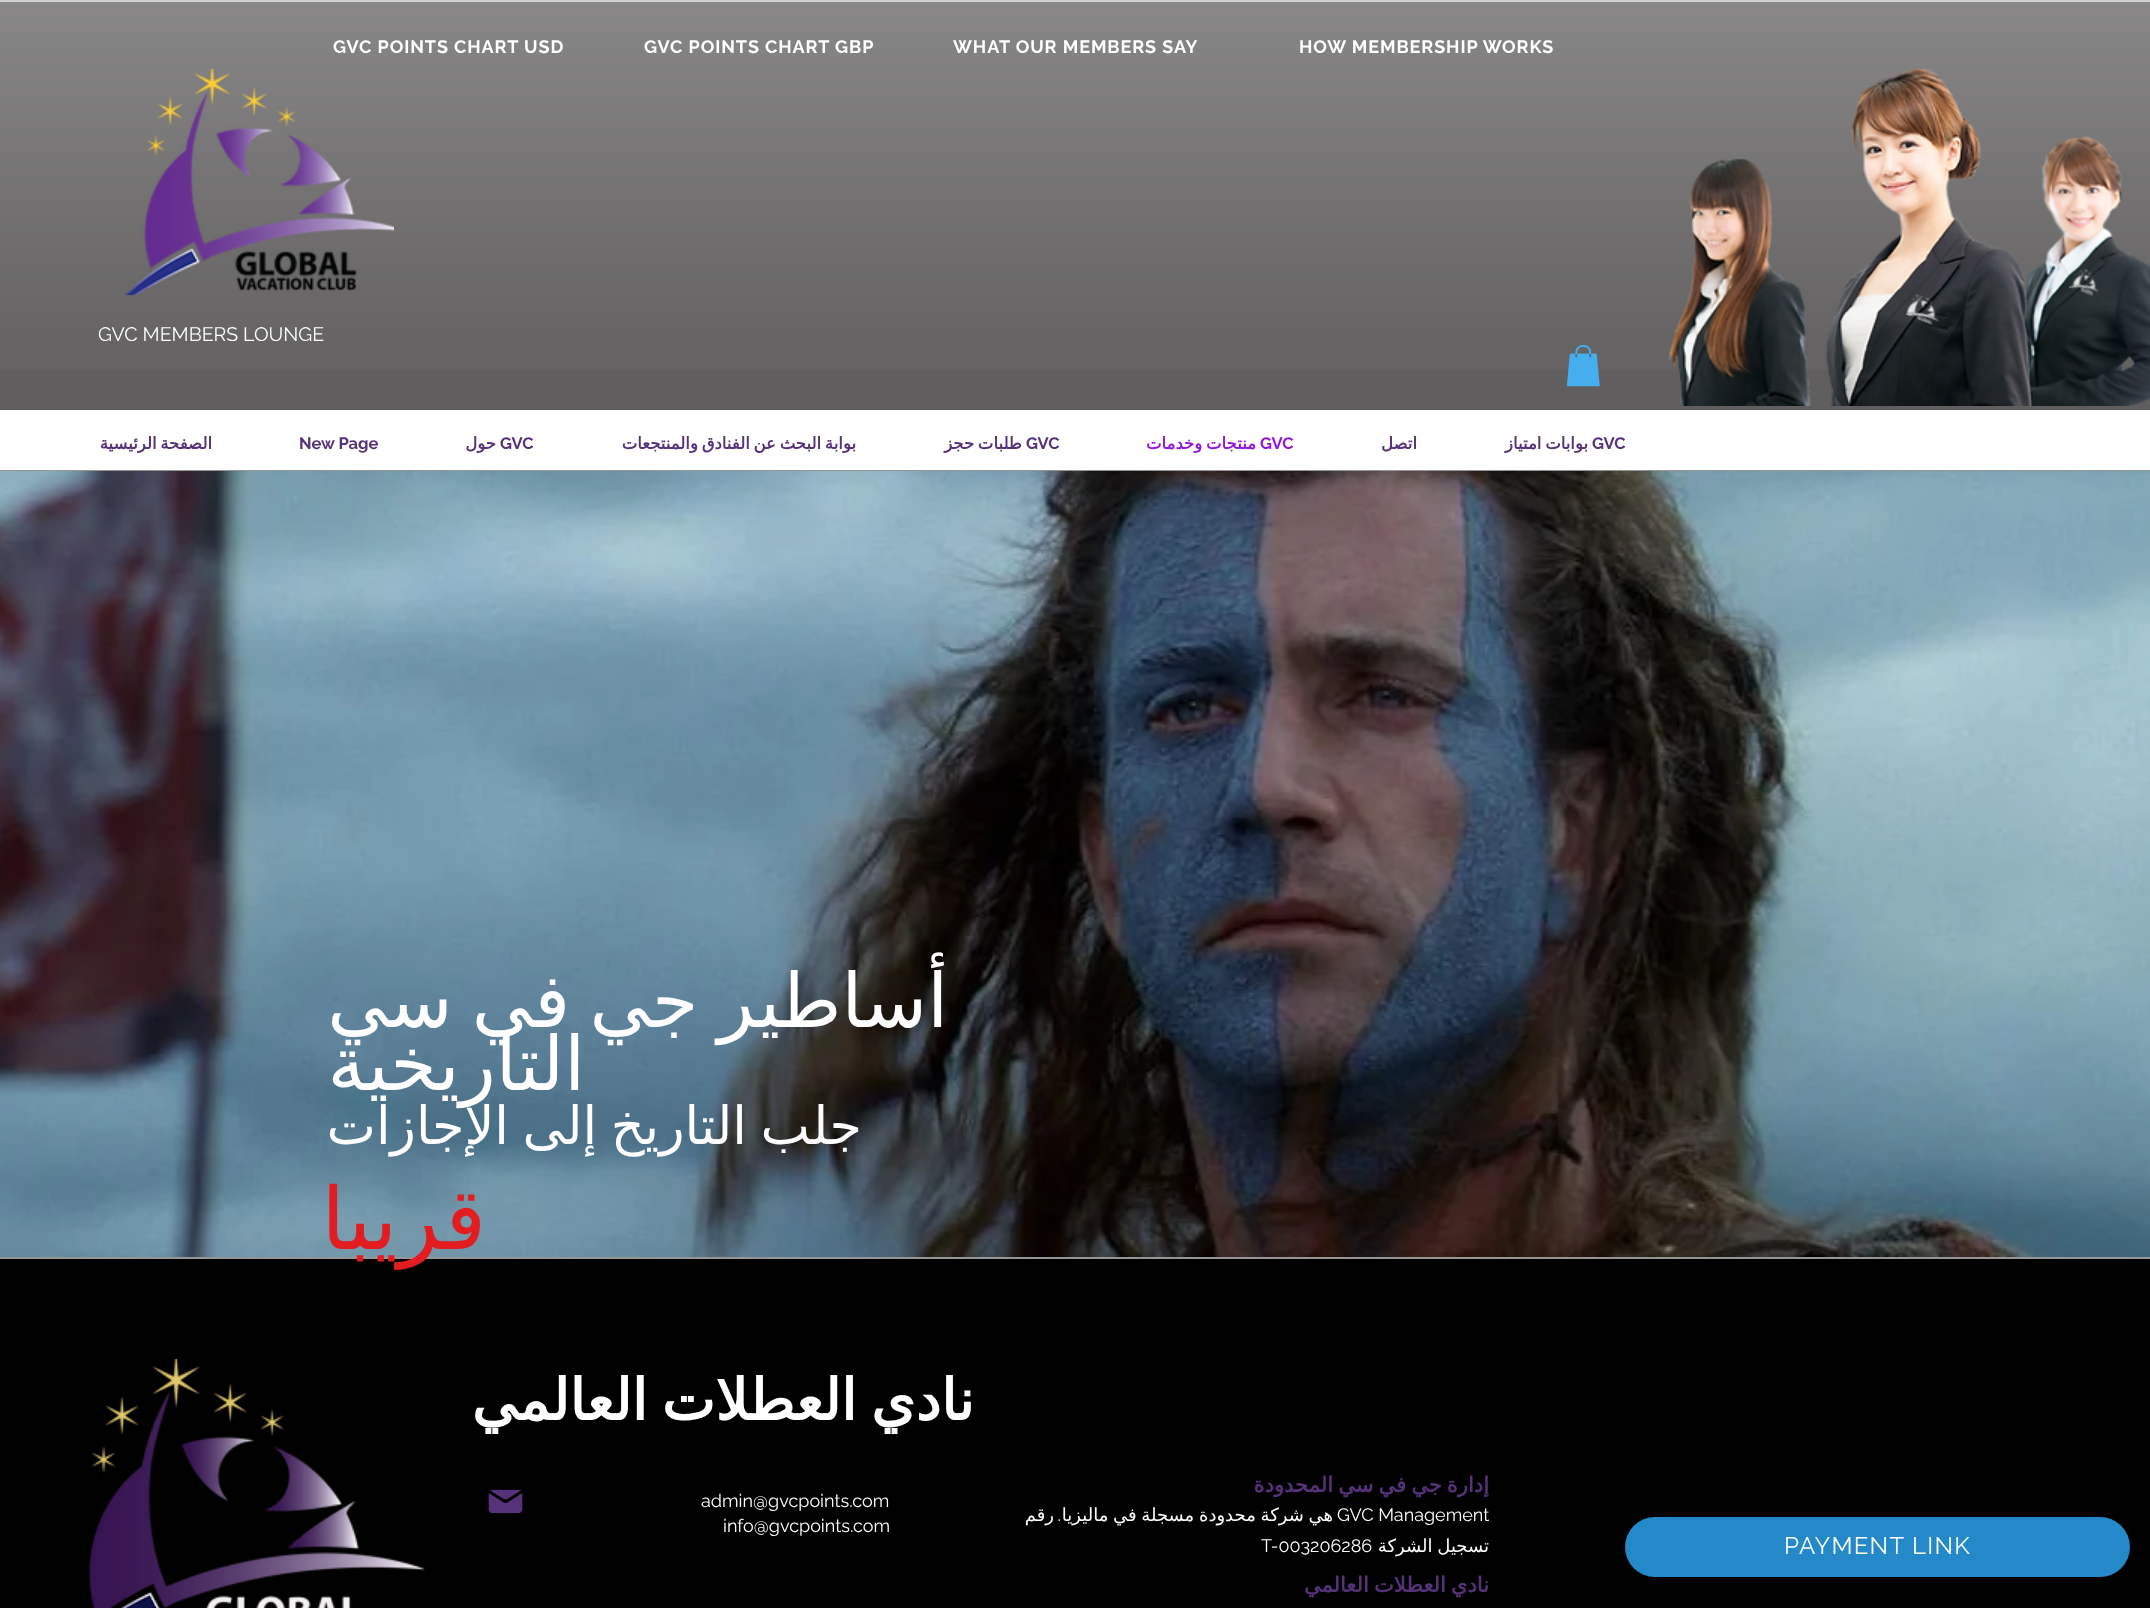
(async () => {
    const canvas = document.querySelector("canvas");
    canvas.width = 2150;
    canvas.height = 1608;
    const context = canvas.getContext("2d");
    context.miterLimit = 4;
    context.fontKerning = "normal";
    function write(s, x, y, font, color) {
        context.font = font;
        context.fillStyle = color;
        context.fillText(s, x, y);
    }
    function block(x, y, w, h, color) {
        context.fillStyle = color;
        context.fillRect(x, y, w, h);
    }
    function card(x, y, w, h, r, color) {
        context.fillStyle = color;
        context.beginPath();
        context.roundRect(x, y, w, h, r);
        context.fill();
    }
    async function photo(src, x, y, w, h) {
        const img = new Image();
        img.src = src;
        await img.decode();
        context.drawImage(img, x, y, w, h);
    }

    block(0, 0, 2150, 1608, "rgb(0, 0, 0)");
    block(0, 2, 2150, 408, "rgb(96, 94, 94)");
    await photo("media/1.png", 0, 2, 2150, 369);
    block(0, 0, 2150, 2, "rgb(208, 207, 207)");
    context.letterSpacing = "0.9px";
    write("HOW MEMBERSHIP WORKS", 1299, 53, "bold 18px Raleway", "rgb(255, 255, 255)");
    write("WHAT OUR MEMBERS SAY", 953, 53, "bold 18px Raleway", "rgb(255, 255, 255)");
    write("GVC POINTS CHART GBP", 644, 53, "bold 18px Raleway", "rgb(255, 255, 255)");
    write("GVC POINTS CHART USD", 333, 53, "bold 18px Raleway", "rgb(255, 255, 255)");
    await photo("media/2.png", 1668, 69, 482, 337);
    await photo("media/3.png", 2069, 269, 30, 28);
    await photo("media/4.png", 1905, 294, 34, 31);
    context.letterSpacing = "0px";
    write("GVC MEMBERS LOUNGE", 98, 341, "19.5px Raleway", "rgb(255, 255, 255)");
    await photo("media/5.png", 1566, 345, 34, 42);
    block(0, 410, 2150, 60, "rgb(255, 255, 255)");
    write("GVC", 1592, 449, "bold 16.5px Raleway", "rgb(86, 50, 122)");
    context.wordSpacing = "-1.5px";
    context.direction = "rtl";
    write("بوابات امتياز", 1588, 449, "bold 16.5px DejaVu Sans", "rgb(86, 50, 122)");
    context.wordSpacing = "0px";
    write("اتصل", 1417, 449, "bold 16.5px DejaVu Sans", "rgb(86, 50, 122)");
    context.direction = "ltr";
    write("GVC", 1260, 449, "bold 16.5px Raleway", "rgb(148, 22, 224)");
    context.wordSpacing = "-1.5px";
    context.direction = "rtl";
    write("منتجات وخدمات", 1256, 449, "bold 16.5px DejaVu Sans", "rgb(148, 22, 224)");
    context.wordSpacing = "0px";
    context.direction = "ltr";
    write("GVC", 1026, 449, "bold 16.5px Raleway", "rgb(86, 50, 122)");
    context.wordSpacing = "-1.5px";
    context.direction = "rtl";
    write("طلبات حجز", 1022, 449, "bold 16.5px DejaVu Sans", "rgb(86, 50, 122)");
    write("بوابة البحث عن الفنادق والمنتجعات", 856, 449, "bold 16.5px DejaVu Sans", "rgb(86, 50, 122)");
    context.wordSpacing = "0px";
    context.direction = "ltr";
    write("GVC", 500, 449, "bold 16.5px Raleway", "rgb(86, 50, 122)");
    context.direction = "rtl";
    write("حول", 496, 449, "bold 16.5px DejaVu Sans", "rgb(86, 50, 122)");
    context.direction = "ltr";
    write("New Page", 299, 449, "bold 16.5px Raleway", "rgb(86, 50, 122)");
    context.wordSpacing = "-1.5px";
    context.direction = "rtl";
    write("الصفحة الرئيسية", 212, 449, "bold 16.5px DejaVu Sans", "rgb(86, 50, 122)");
    await photo("media/6.png", 124, 69, 270, 227);
    block(0, 470, 2150, 789, "rgb(149, 149, 149)");
    await photo("media/7.png", 0, 471, 2150, 786);
    context.wordSpacing = "-4.5px";
    write("أساطير جي في سي", 948, 1027, "75px DejaVu Sans", "rgb(255, 255, 255)");
    context.wordSpacing = "0px";
    write("التاريخية", 585, 1090, "75px DejaVu Sans", "rgb(255, 255, 255)");
    context.wordSpacing = "-3px";
    write("جلب التاريخ إلى الإجازات", 862, 1144, "52.5px DejaVu Sans", "rgb(255, 255, 255)");
    context.wordSpacing = "0px";
    write("قريبا", 486, 1249, "86px DejaVu Sans", "rgb(226, 28, 33)");
    context.wordSpacing = "-4px";
    write("نادي العطلات العالمي", 974, 1420, "bold 57px DejaVu Sans", "rgb(255, 255, 255)");
    await photo("media/8.png", 88, 1359, 337, 249);
    context.wordSpacing = "-1.5px";
    write("إدارة جي في سي المحدودة", 1489, 1492, "bold 21px DejaVu Sans", "rgb(86, 50, 122)");
    context.wordSpacing = "0px";
    context.direction = "ltr";
    write("GVC Management", 1337, 1521, "18px Raleway", "rgb(255, 255, 255)");
    context.wordSpacing = "-1px";
    context.direction = "rtl";
    write("هي شركة محدودة مسجلة في ماليزيا", 1333, 1521, "18px DejaVu Sans", "rgb(255, 255, 255)");
    context.wordSpacing = "0px";
    write(".", 1061, 1521, "18px Raleway", "rgb(255, 255, 255)");
    write("رقم", 1054, 1521, "18px DejaVu Sans", "rgb(255, 255, 255)");
    context.wordSpacing = "-1px";
    write("تسجيل الشركة", 1489, 1552, "18px DejaVu Sans", "rgb(255, 255, 255)");
    context.wordSpacing = "0px";
    context.direction = "ltr";
    write("T-003206286", 1261, 1552, "18px Raleway", "rgb(255, 255, 255)");
    context.wordSpacing = "-1.5px";
    context.direction = "rtl";
    write("نادي العطلات العالمي", 1489, 1592, "bold 21px DejaVu Sans", "rgb(86, 50, 122)");
    context.wordSpacing = "0px";
    context.direction = "ltr";
    write("admin@gvcpoints.com", 701, 1507, "18px Raleway", "rgb(255, 255, 255)");
    write("info@gvcpoints.com", 723, 1532, "18px Raleway", "rgb(255, 255, 255)");
    await photo("media/9.png", 488, 1489, 35, 25);
    card(1625, 1517, 505, 60, 30, "rgb(35, 137, 201)");
    context.letterSpacing = "1.25px";
    write("PAYMENT LINK", 1784, 1554, "24px Raleway", "rgb(255, 255, 255)");
})();
